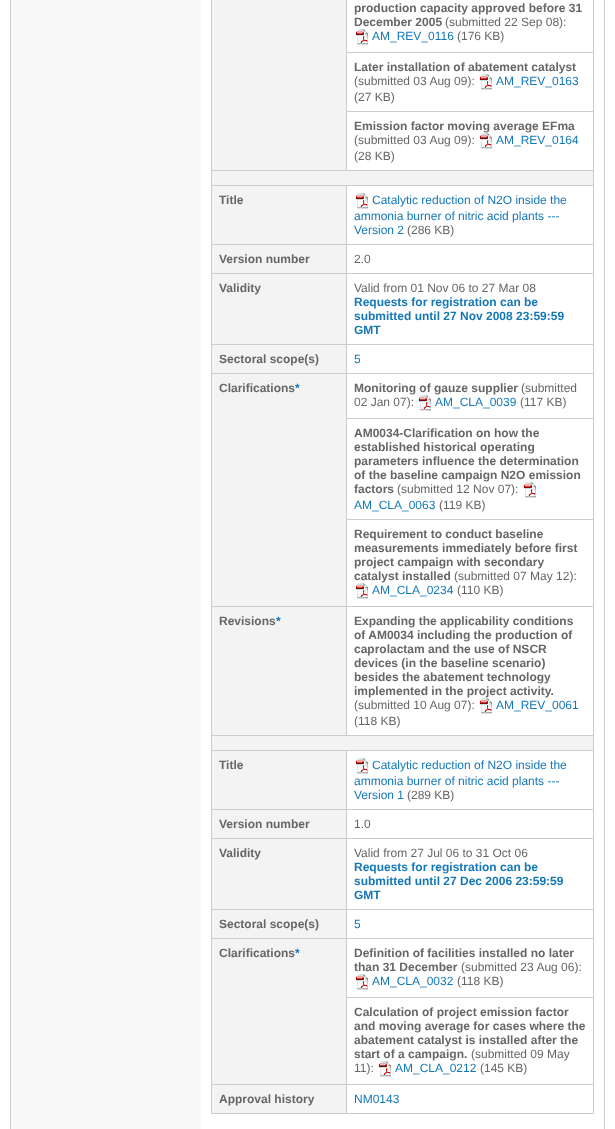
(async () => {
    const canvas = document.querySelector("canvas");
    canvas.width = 615;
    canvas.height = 1129;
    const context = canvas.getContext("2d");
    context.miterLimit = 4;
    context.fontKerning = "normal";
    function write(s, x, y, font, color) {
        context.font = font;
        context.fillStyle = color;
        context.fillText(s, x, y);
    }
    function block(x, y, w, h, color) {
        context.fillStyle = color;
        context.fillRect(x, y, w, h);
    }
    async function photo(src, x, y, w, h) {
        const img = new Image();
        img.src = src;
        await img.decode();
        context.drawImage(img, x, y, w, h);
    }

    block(0, 0, 615, 1129, "rgb(255, 255, 255)");
    block(11, 0, 190, 1129, "rgb(249, 249, 249)");
    context.strokeStyle = "rgb(204, 204, 204)";
    context.strokeRect(10.5, -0.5, 594, 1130);
    block(211, 0, 1, 1113, "rgb(204, 204, 204)");
    block(593, 0, 1, 1114, "rgb(204, 204, 204)");
    block(211, 1113, 383, 1, "rgb(204, 204, 204)");
    block(212, 0, 134, 170, "rgb(243, 243, 243)");
    write("production capacity approved before 31", 354, 12, "bold 12px Liberation Sans", "rgb(102, 102, 102)");
    write("December 2005", 354, 26, "bold 12px Liberation Sans", "rgb(102, 102, 102)");
    write("(submitted 22 Sep 08):", 445, 26, "12px Liberation Sans", "rgb(102, 102, 102)");
    await photo("media/1.png", 355, 29, 14, 16);
    write("AM_REV_0116", 372, 40, "12px Liberation Sans", "rgb(20, 120, 183)");
    write("(176 KB)", 457, 40, "12px Liberation Sans", "rgb(102, 102, 102)");
    block(346, 52, 248, 1, "rgb(204, 204, 204)");
    block(346, 111, 248, 1, "rgb(204, 204, 204)");
    block(211, 170, 383, 1, "rgb(204, 204, 204)");
    block(346, 111, 1, 60, "rgb(204, 204, 204)");
    block(346, 0, 1, 112, "rgb(204, 204, 204)");
    write("Later installation of abatement catalyst", 354, 71, "bold 12px Liberation Sans", "rgb(102, 102, 102)");
    write("(submitted 03 Aug 09):", 354, 85, "12px Liberation Sans", "rgb(102, 102, 102)");
    await photo("media/1.png", 479, 74, 14, 16);
    write("AM_REV_0163", 496, 85, "12px Liberation Sans", "rgb(20, 120, 183)");
    write("(27 KB)", 354, 101, "12px Liberation Sans", "rgb(102, 102, 102)");
    write("Emission factor moving average EFma", 354, 130, "bold 12px Liberation Sans", "rgb(102, 102, 102)");
    write("(submitted 03 Aug 09):", 354, 144, "12px Liberation Sans", "rgb(102, 102, 102)");
    await photo("media/1.png", 479, 133, 14, 16);
    write("AM_REV_0164", 496, 144, "12px Liberation Sans", "rgb(20, 120, 183)");
    write("(28 KB)", 354, 160, "12px Liberation Sans", "rgb(102, 102, 102)");
    block(212, 171, 381, 14, "rgb(243, 243, 243)");
    block(212, 186, 134, 58, "rgb(243, 243, 243)");
    block(346, 185, 248, 1, "rgb(204, 204, 204)");
    block(346, 244, 248, 1, "rgb(204, 204, 204)");
    block(346, 273, 248, 1, "rgb(204, 204, 204)");
    block(346, 344, 248, 1, "rgb(204, 204, 204)");
    block(346, 373, 248, 1, "rgb(204, 204, 204)");
    block(346, 418, 248, 1, "rgb(204, 204, 204)");
    block(346, 519, 248, 1, "rgb(204, 204, 204)");
    block(346, 606, 248, 1, "rgb(204, 204, 204)");
    block(211, 735, 383, 1, "rgb(204, 204, 204)");
    block(346, 606, 1, 130, "rgb(204, 204, 204)");
    block(211, 606, 136, 1, "rgb(204, 204, 204)");
    block(346, 519, 1, 88, "rgb(204, 204, 204)");
    block(346, 418, 1, 102, "rgb(204, 204, 204)");
    block(346, 373, 1, 46, "rgb(204, 204, 204)");
    block(211, 373, 136, 1, "rgb(204, 204, 204)");
    block(346, 344, 1, 30, "rgb(204, 204, 204)");
    block(211, 344, 136, 1, "rgb(204, 204, 204)");
    block(346, 273, 1, 72, "rgb(204, 204, 204)");
    block(211, 273, 136, 1, "rgb(204, 204, 204)");
    block(346, 244, 1, 30, "rgb(204, 204, 204)");
    block(211, 244, 136, 1, "rgb(204, 204, 204)");
    block(346, 185, 1, 60, "rgb(204, 204, 204)");
    block(211, 185, 136, 1, "rgb(204, 204, 204)");
    write("Title", 219, 204, "bold 12px Liberation Sans", "rgb(102, 102, 102)");
    await photo("media/1.png", 355, 193, 14, 16);
    write("Catalytic reduction of N2O inside the", 372, 204, "12px Liberation Sans", "rgb(20, 120, 183)");
    write("ammonia burner of nitric acid plants ---", 354, 220, "12px Liberation Sans", "rgb(20, 120, 183)");
    write("Version 2", 354, 234, "12px Liberation Sans", "rgb(20, 120, 183)");
    write("(286 KB)", 407, 234, "12px Liberation Sans", "rgb(102, 102, 102)");
    block(212, 245, 134, 28, "rgb(243, 243, 243)");
    write("Version number", 219, 263, "bold 12px Liberation Sans", "rgb(102, 102, 102)");
    write("2.0", 354, 263, "12px Liberation Sans", "rgb(102, 102, 102)");
    block(212, 274, 134, 70, "rgb(243, 243, 243)");
    write("Validity", 219, 292, "bold 12px Liberation Sans", "rgb(102, 102, 102)");
    write("Valid from 01 Nov 06 to 27 Mar 08", 354, 292, "12px Liberation Sans", "rgb(102, 102, 102)");
    write("Requests for registration can be", 354, 306, "bold 12px Liberation Sans", "rgb(20, 120, 183)");
    write("submitted until 27 Nov 2008 23:59:59", 354, 320, "bold 12px Liberation Sans", "rgb(20, 120, 183)");
    write("GMT", 354, 334, "bold 12px Liberation Sans", "rgb(20, 120, 183)");
    block(212, 345, 134, 28, "rgb(243, 243, 243)");
    write("Sectoral scope(s)", 219, 363, "bold 12px Liberation Sans", "rgb(102, 102, 102)");
    write("5", 354, 363, "12px Liberation Sans", "rgb(20, 120, 183)");
    block(212, 374, 134, 232, "rgb(243, 243, 243)");
    write("Clarifications", 219, 392, "bold 12px Liberation Sans", "rgb(102, 102, 102)");
    write("*", 295, 392, "bold 12px Liberation Sans", "rgb(20, 120, 183)");
    write("Monitoring of gauze supplier", 354, 392, "bold 12px Liberation Sans", "rgb(102, 102, 102)");
    write("(submitted", 521, 392, "12px Liberation Sans", "rgb(102, 102, 102)");
    write("02 Jan 07):", 354, 406, "12px Liberation Sans", "rgb(102, 102, 102)");
    await photo("media/1.png", 418, 395, 14, 16);
    write("AM_CLA_0039", 435, 406, "12px Liberation Sans", "rgb(20, 120, 183)");
    write("(117 KB)", 520, 406, "12px Liberation Sans", "rgb(102, 102, 102)");
    write("AM0034-Clarification on how the", 354, 437, "bold 12px Liberation Sans", "rgb(102, 102, 102)");
    write("established historical operating", 354, 451, "bold 12px Liberation Sans", "rgb(102, 102, 102)");
    write("parameters influence the determination", 354, 465, "bold 12px Liberation Sans", "rgb(102, 102, 102)");
    write("of the baseline campaign N2O emission", 354, 479, "bold 12px Liberation Sans", "rgb(102, 102, 102)");
    write("factors", 354, 493, "bold 12px Liberation Sans", "rgb(102, 102, 102)");
    write("(submitted 12 Nov 07):", 397, 493, "12px Liberation Sans", "rgb(102, 102, 102)");
    await photo("media/1.png", 523, 482, 14, 16);
    write("AM_CLA_0063", 354, 509, "12px Liberation Sans", "rgb(20, 120, 183)");
    write("(119 KB)", 439, 509, "12px Liberation Sans", "rgb(102, 102, 102)");
    write("Requirement to conduct baseline", 354, 538, "bold 12px Liberation Sans", "rgb(102, 102, 102)");
    write("measurements immediately before first", 354, 552, "bold 12px Liberation Sans", "rgb(102, 102, 102)");
    write("project campaign with secondary", 354, 566, "bold 12px Liberation Sans", "rgb(102, 102, 102)");
    write("catalyst installed", 354, 580, "bold 12px Liberation Sans", "rgb(102, 102, 102)");
    write("(submitted 07 May 12):", 454, 580, "12px Liberation Sans", "rgb(102, 102, 102)");
    await photo("media/1.png", 355, 583, 14, 16);
    write("AM_CLA_0234", 372, 594, "12px Liberation Sans", "rgb(20, 120, 183)");
    write("(110 KB)", 457, 594, "12px Liberation Sans", "rgb(102, 102, 102)");
    block(212, 607, 134, 128, "rgb(243, 243, 243)");
    write("Revisions", 219, 625, "bold 12px Liberation Sans", "rgb(102, 102, 102)");
    write("*", 276, 625, "bold 12px Liberation Sans", "rgb(20, 120, 183)");
    write("Expanding the applicability conditions", 354, 625, "bold 12px Liberation Sans", "rgb(102, 102, 102)");
    write("of AM0034 including the production of", 354, 639, "bold 12px Liberation Sans", "rgb(102, 102, 102)");
    write("caprolactam and the use of NSCR", 354, 653, "bold 12px Liberation Sans", "rgb(102, 102, 102)");
    write("devices (in the baseline scenario)", 354, 667, "bold 12px Liberation Sans", "rgb(102, 102, 102)");
    write("besides the abatement technology", 354, 681, "bold 12px Liberation Sans", "rgb(102, 102, 102)");
    write("implemented in the project activity.", 354, 695, "bold 12px Liberation Sans", "rgb(102, 102, 102)");
    write("(submitted 10 Aug 07):", 354, 709, "12px Liberation Sans", "rgb(102, 102, 102)");
    await photo("media/1.png", 479, 698, 14, 16);
    write("AM_REV_0061", 496, 709, "12px Liberation Sans", "rgb(20, 120, 183)");
    write("(118 KB)", 354, 725, "12px Liberation Sans", "rgb(102, 102, 102)");
    block(212, 736, 381, 14, "rgb(243, 243, 243)");
    block(212, 751, 134, 58, "rgb(243, 243, 243)");
    block(346, 750, 248, 1, "rgb(204, 204, 204)");
    block(346, 809, 248, 1, "rgb(204, 204, 204)");
    block(346, 838, 248, 1, "rgb(204, 204, 204)");
    block(346, 909, 248, 1, "rgb(204, 204, 204)");
    block(346, 938, 248, 1, "rgb(204, 204, 204)");
    block(346, 997, 248, 1, "rgb(204, 204, 204)");
    block(346, 1084, 248, 1, "rgb(204, 204, 204)");
    block(346, 1084, 1, 30, "rgb(204, 204, 204)");
    block(211, 1084, 136, 1, "rgb(204, 204, 204)");
    block(346, 997, 1, 88, "rgb(204, 204, 204)");
    block(346, 938, 1, 60, "rgb(204, 204, 204)");
    block(211, 938, 136, 1, "rgb(204, 204, 204)");
    block(346, 909, 1, 30, "rgb(204, 204, 204)");
    block(211, 909, 136, 1, "rgb(204, 204, 204)");
    block(346, 838, 1, 72, "rgb(204, 204, 204)");
    block(211, 838, 136, 1, "rgb(204, 204, 204)");
    block(346, 809, 1, 30, "rgb(204, 204, 204)");
    block(211, 809, 136, 1, "rgb(204, 204, 204)");
    block(346, 750, 1, 60, "rgb(204, 204, 204)");
    block(211, 750, 136, 1, "rgb(204, 204, 204)");
    write("Title", 219, 769, "bold 12px Liberation Sans", "rgb(102, 102, 102)");
    await photo("media/1.png", 355, 758, 14, 16);
    write("Catalytic reduction of N2O inside the", 372, 769, "12px Liberation Sans", "rgb(20, 120, 183)");
    write("ammonia burner of nitric acid plants ---", 354, 785, "12px Liberation Sans", "rgb(20, 120, 183)");
    write("Version 1", 354, 799, "12px Liberation Sans", "rgb(20, 120, 183)");
    write("(289 KB)", 407, 799, "12px Liberation Sans", "rgb(102, 102, 102)");
    block(212, 810, 134, 28, "rgb(243, 243, 243)");
    write("Version number", 219, 828, "bold 12px Liberation Sans", "rgb(102, 102, 102)");
    write("1.0", 354, 828, "12px Liberation Sans", "rgb(102, 102, 102)");
    block(212, 839, 134, 70, "rgb(243, 243, 243)");
    write("Validity", 219, 857, "bold 12px Liberation Sans", "rgb(102, 102, 102)");
    write("Valid from 27 Jul 06 to 31 Oct 06", 354, 857, "12px Liberation Sans", "rgb(102, 102, 102)");
    write("Requests for registration can be", 354, 871, "bold 12px Liberation Sans", "rgb(20, 120, 183)");
    write("submitted until 27 Dec 2006 23:59:59", 354, 885, "bold 12px Liberation Sans", "rgb(20, 120, 183)");
    write("GMT", 354, 899, "bold 12px Liberation Sans", "rgb(20, 120, 183)");
    block(212, 910, 134, 28, "rgb(243, 243, 243)");
    write("Sectoral scope(s)", 219, 928, "bold 12px Liberation Sans", "rgb(102, 102, 102)");
    write("5", 354, 928, "12px Liberation Sans", "rgb(20, 120, 183)");
    block(212, 939, 134, 145, "rgb(243, 243, 243)");
    write("Clarifications", 219, 957, "bold 12px Liberation Sans", "rgb(102, 102, 102)");
    write("*", 295, 957, "bold 12px Liberation Sans", "rgb(20, 120, 183)");
    write("Definition of facilities installed no later", 354, 957, "bold 12px Liberation Sans", "rgb(102, 102, 102)");
    write("than 31 December", 354, 971, "bold 12px Liberation Sans", "rgb(102, 102, 102)");
    write("(submitted 23 Aug 06):", 461, 971, "12px Liberation Sans", "rgb(102, 102, 102)");
    await photo("media/1.png", 355, 974, 14, 16);
    write("AM_CLA_0032", 372, 985, "12px Liberation Sans", "rgb(20, 120, 183)");
    write("(118 KB)", 457, 985, "12px Liberation Sans", "rgb(102, 102, 102)");
    write("Calculation of project emission factor", 354, 1016, "bold 12px Liberation Sans", "rgb(102, 102, 102)");
    write("and moving average for cases where the", 354, 1030, "bold 12px Liberation Sans", "rgb(102, 102, 102)");
    write("abatement catalyst is installed after the", 354, 1044, "bold 12px Liberation Sans", "rgb(102, 102, 102)");
    write("start of a campaign.", 354, 1058, "bold 12px Liberation Sans", "rgb(102, 102, 102)");
    write("(submitted 09 May", 471, 1058, "12px Liberation Sans", "rgb(102, 102, 102)");
    write("11):", 354, 1072, "12px Liberation Sans", "rgb(102, 102, 102)");
    await photo("media/1.png", 378, 1061, 14, 16);
    write("AM_CLA_0212", 395, 1072, "12px Liberation Sans", "rgb(20, 120, 183)");
    write("(145 KB)", 480, 1072, "12px Liberation Sans", "rgb(102, 102, 102)");
    block(212, 1085, 134, 28, "rgb(243, 243, 243)");
    write("Approval history", 219, 1103, "bold 12px Liberation Sans", "rgb(102, 102, 102)");
    write("NM0143", 354, 1103, "12px Liberation Sans", "rgb(20, 120, 183)");
})();
